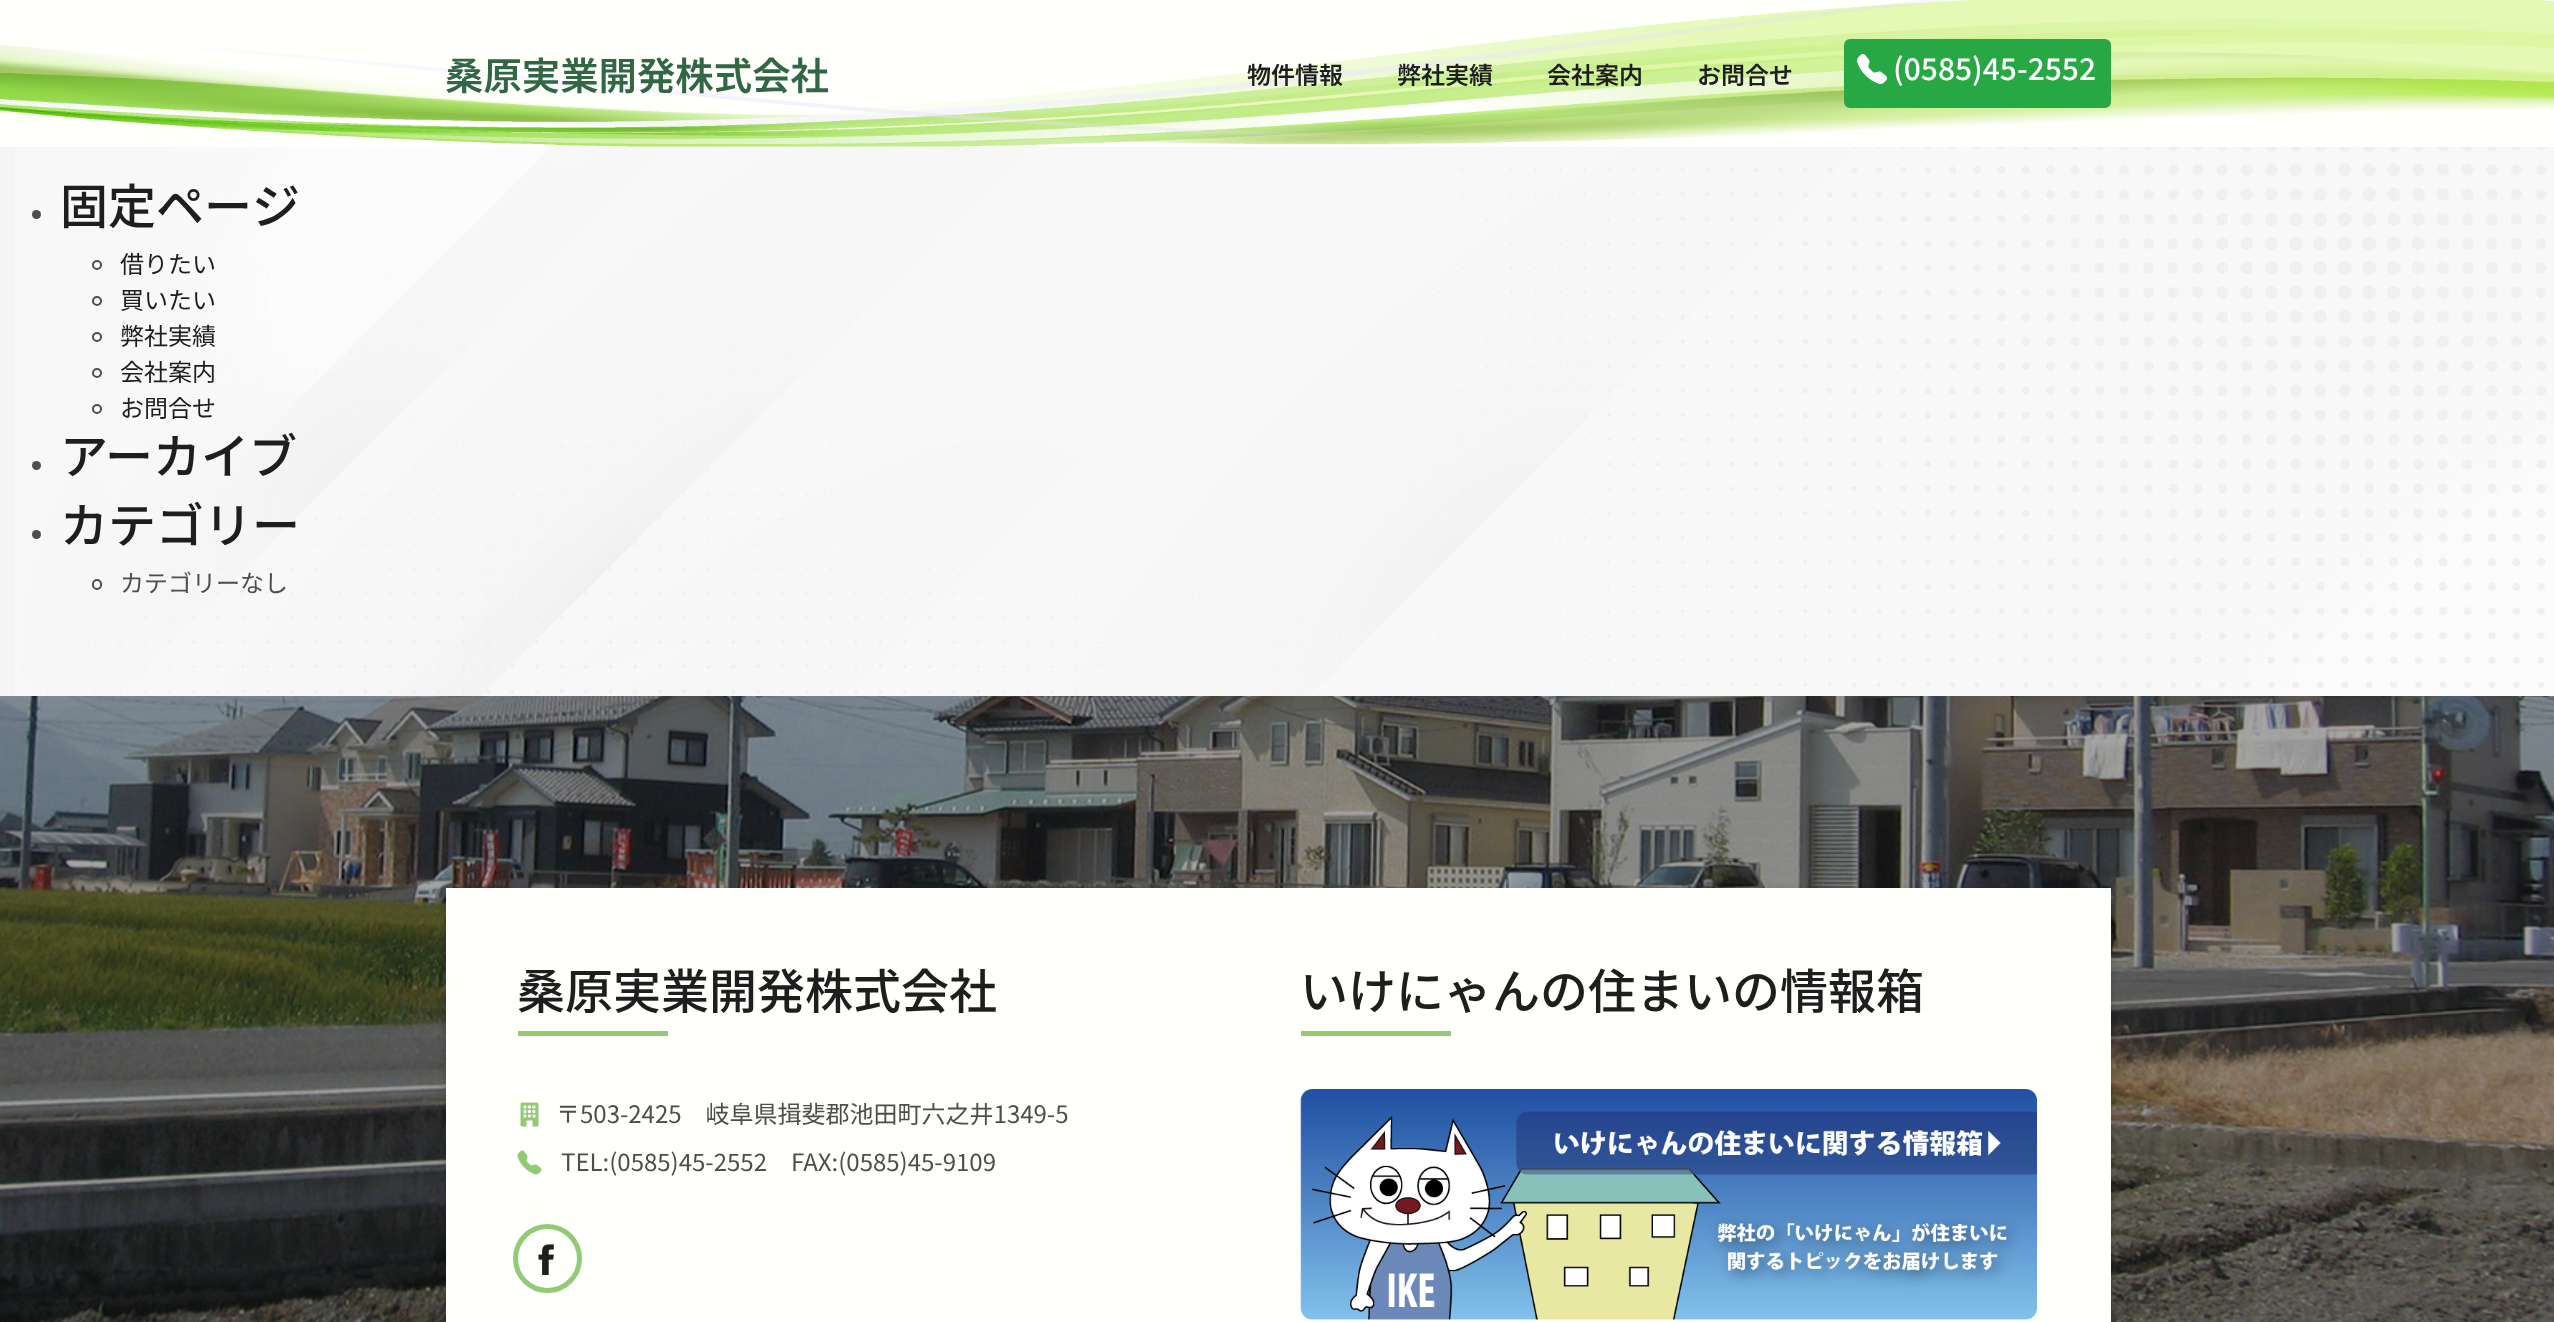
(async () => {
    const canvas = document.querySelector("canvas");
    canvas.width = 2554;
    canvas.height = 1322;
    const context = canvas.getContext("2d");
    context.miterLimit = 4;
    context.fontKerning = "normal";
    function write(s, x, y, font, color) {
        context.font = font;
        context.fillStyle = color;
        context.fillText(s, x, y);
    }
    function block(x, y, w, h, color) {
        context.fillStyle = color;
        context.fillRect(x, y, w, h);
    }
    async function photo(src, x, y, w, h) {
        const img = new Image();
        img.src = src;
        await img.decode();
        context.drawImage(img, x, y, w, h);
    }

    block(0, 0, 2554, 1322, "rgb(245, 245, 245)");
    await photo("media/1.png", 15, 147, 2539, 549);
    block(0, 0, 2554, 147, "rgb(255, 255, 252)");
    await photo("media/2.png", 0, 0, 2554, 147);
    write("桑原実業開発株式会社", 445, 90, "600 38.4px Noto Sans JP", "rgb(49, 103, 69)");
    write("物件情報", 1247, 84, "600 24px Noto Sans JP", "rgb(30, 30, 30)");
    write("弊社実績", 1397, 84, "600 24px Noto Sans JP", "rgb(30, 30, 30)");
    write("会社案内", 1547, 84, "600 24px Noto Sans JP", "rgb(30, 30, 30)");
    write("お問合せ", 1697, 84, "600 24px Noto Sans JP", "rgb(30, 30, 30)");
    context.fillStyle = "rgb(40, 167, 69)";
    context.beginPath();
    context.roundRect(1845, 40, 265, 67, 5);
    context.fill();
    context.strokeStyle = "rgb(40, 167, 69)";
    context.lineWidth = 2;
    context.stroke();
    await photo("media/3.png", 1857, 54, 30, 30);
    write("(0585)45-2552", 1893, 80, "500 30px Noto Sans JP", "rgb(255, 255, 255)");
    context.fillStyle = "rgb(78, 78, 78)";
    context.beginPath();
    context.arc(36.5, 214.5, 4.5, 0, Math.PI * 2);
    context.fill();
    write("固定ページ", 60, 224, "500 48px Noto Sans JP", "rgb(30, 30, 30)");
    context.beginPath();
    context.arc(97, 265, 4, 0, Math.PI * 2);
    context.strokeStyle = "rgb(78, 78, 78)";
    context.stroke();
    write("借りたい", 120, 273, "24px Noto Sans JP", "rgb(30, 30, 30)");
    context.beginPath();
    context.arc(97, 301, 4, 0, Math.PI * 2);
    context.stroke();
    write("買いたい", 120, 309, "24px Noto Sans JP", "rgb(30, 30, 30)");
    context.beginPath();
    context.arc(97, 337, 4, 0, Math.PI * 2);
    context.stroke();
    write("弊社実績", 120, 345, "24px Noto Sans JP", "rgb(30, 30, 30)");
    context.beginPath();
    context.arc(97, 373, 4, 0, Math.PI * 2);
    context.stroke();
    write("会社案内", 120, 381, "24px Noto Sans JP", "rgb(30, 30, 30)");
    context.beginPath();
    context.arc(97, 409, 4, 0, Math.PI * 2);
    context.stroke();
    write("お問合せ", 120, 417, "24px Noto Sans JP", "rgb(30, 30, 30)");
    context.fillStyle = "rgb(78, 78, 78)";
    context.beginPath();
    context.arc(36.5, 465.5, 4.5, 0, Math.PI * 2);
    context.fill();
    write("アーカイブ", 60, 474, "500 48px Noto Sans JP", "rgb(30, 30, 30)");
    context.fillStyle = "rgb(78, 78, 78)";
    context.beginPath();
    context.arc(36.5, 534.5, 4.5, 0, Math.PI * 2);
    context.fill();
    write("カテゴリー", 60, 543, "500 48px Noto Sans JP", "rgb(30, 30, 30)");
    context.beginPath();
    context.roundRect(93, 580, 8, 9, 4);
    context.stroke();
    write("カテゴリーなし", 120, 592, "24px Noto Sans JP", "rgb(78, 78, 78)");
    await photo("media/4.png", 0, 696, 2554, 626);
    context.fillStyle = "rgba(0, 0, 0, 0.2)";
    context.filter = "blur(4px)";
    context.beginPath();
    context.rect(446, 891, 1665, 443);
    context.fill();
    context.filter = "none";
    block(446, 888, 1665, 434, "rgb(255, 255, 252)");
    write("桑原実業開発株式会社", 517, 1009, "500 48px Noto Sans JP", "rgb(30, 30, 30)");
    block(518, 1031, 150, 5, "rgb(147, 202, 118)");
    await photo("media/5.png", 520, 1102, 19, 25);
    write("〒503-2425　岐阜県揖斐郡池田町六之井1349-5", 556, 1123, "24px Noto Sans JP", "rgb(78, 78, 78)");
    await photo("media/6.png", 517, 1150, 25, 25);
    write("TEL:(0585)45-2552　FAX:(0585)45-9109", 561, 1171, "24px Noto Sans JP", "rgb(78, 78, 78)");
    context.beginPath();
    context.arc(547.5, 1258.5, 32, 0, Math.PI * 2);
    context.strokeStyle = "rgb(147, 202, 118)";
    context.lineWidth = 5;
    context.stroke();
    await photo("media/7.png", 538, 1244, 16, 31);
    write("いけにゃんの住まいの情報箱", 1300, 1009, "500 48px Noto Sans JP", "rgb(30, 30, 30)");
    block(1301, 1031, 150, 5, "rgb(147, 202, 118)");
    await photo("media/8.png", 1300, 1089, 737, 231);
})();
